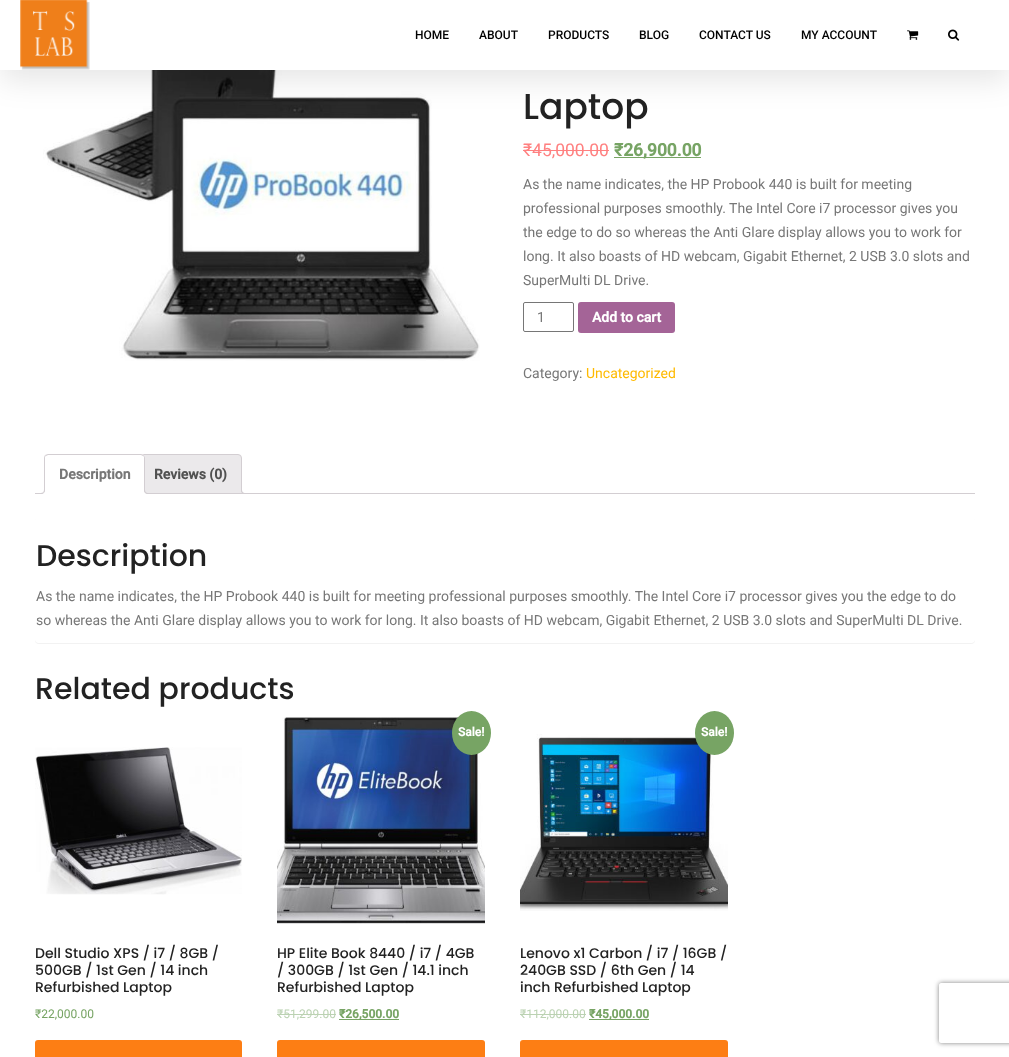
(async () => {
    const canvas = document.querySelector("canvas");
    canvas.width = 1009;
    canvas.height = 1057;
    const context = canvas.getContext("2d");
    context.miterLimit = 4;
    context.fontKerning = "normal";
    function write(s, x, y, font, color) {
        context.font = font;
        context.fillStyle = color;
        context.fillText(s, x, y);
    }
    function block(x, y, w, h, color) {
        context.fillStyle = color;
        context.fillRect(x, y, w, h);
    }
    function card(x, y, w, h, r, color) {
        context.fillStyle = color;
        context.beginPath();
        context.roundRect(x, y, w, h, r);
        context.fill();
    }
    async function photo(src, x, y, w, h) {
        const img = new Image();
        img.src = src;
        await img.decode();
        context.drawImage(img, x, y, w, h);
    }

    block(0, 0, 1009, 1057, "rgb(255, 255, 255)");
    await photo("media/4.png", 43, 70, 437, 291);
    context.fillStyle = "rgba(0, 0, 0, 0.1)";
    context.filter = "blur(15px)";
    context.beginPath();
    context.rect(0, 10, 1009, 70);
    context.fill();
    context.filter = "none";
    block(0, 0, 1009, 70, "rgb(255, 255, 255)");
    await photo("media/1.png", 20, 0, 70, 70);
    write("HOME", 415, 39, "500 12px Roboto", "rgb(0, 0, 0)");
    write("ABOUT", 479, 39, "500 12px Roboto", "rgb(0, 0, 0)");
    write("PRODUCTS", 548, 39, "500 12px Roboto", "rgb(0, 0, 0)");
    write("BLOG", 639, 39, "500 12px Roboto", "rgb(0, 0, 0)");
    write("CONTACT US", 699, 39, "500 12px Roboto", "rgb(0, 0, 0)");
    write("MY ACCOUNT", 801, 39, "500 12px Roboto", "rgb(0, 0, 0)");
    await photo("media/2.png", 907, 30, 12, 10);
    await photo("media/3.png", 948, 29, 12, 12);
    write("Laptop", 523, 119, "500 36px Poppins", "rgb(34, 34, 34)");
    write("₹45,000.00", 523, 156, "17.5px Roboto", "rgb(255, 128, 128)");
    block(523, 150, 86, 1, "rgb(255, 128, 128)");
    block(614, 157, 87, 1, "rgb(119, 164, 100)");
    write("₹26,900.00", 614, 156, "bold 17.5px Roboto", "rgb(119, 164, 100)");
    write("As the name indicates, the HP Probook 440 is built for meeting", 523, 189, "14px Roboto", "rgb(119, 119, 119)");
    write("professional purposes smoothly. The Intel Core i7 processor gives you", 523, 213, "14px Roboto", "rgb(119, 119, 119)");
    write("the edge to do so whereas the Anti Glare display allows you to work for", 523, 237, "14px Roboto", "rgb(119, 119, 119)");
    write("long. It also boasts of HD webcam, Gigabit Ethernet, 2 USB 3.0 slots and", 523, 261, "14px Roboto", "rgb(119, 119, 119)");
    write("SuperMulti DL Drive.", 523, 285, "14px Roboto", "rgb(119, 119, 119)");
    context.beginPath();
    context.roundRect(523.5, 302.5, 50, 29, 1.5);
    context.strokeStyle = "rgb(118, 118, 118)";
    context.stroke();
    write("1", 537, 322, "14px Roboto", "rgb(119, 119, 119)");
    card(578, 302, 97, 31, 3, "rgb(164, 100, 151)");
    write("Add to cart", 592, 322, "bold 14px Roboto", "rgb(255, 255, 255)");
    write("Category:", 523, 378, "14px Roboto", "rgb(119, 119, 119)");
    write("Uncategorized", 586, 378, "14px Roboto", "rgb(255, 186, 0)");
    context.fillStyle = "rgb(235, 233, 235)";
    context.beginPath();
    context.roundRect(139.5, 454.5, 102, 39, [3.5, 3.5, 0, 0]);
    context.fill();
    context.strokeStyle = "rgb(211, 206, 210)";
    context.stroke();
    context.save();
    context.beginPath();
    context.rect(35, 454, 940, 40);
    context.clip();
    context.beginPath();
    context.moveTo(239, 491);
    context.bezierCurveTo(239, 494.5, 240.5, 496, 244, 496);
    context.lineTo(244, 494);
    context.bezierCurveTo(242.5, 493.5, 241.5, 492.5, 241, 491);
    context.closePath();
    context.fill();
    context.restore();
    context.fillStyle = "rgb(211, 206, 210)";
    context.beginPath();
    context.moveTo(241, 489);
    context.lineTo(246, 489);
    context.lineTo(246, 494);
    context.bezierCurveTo(243.5, 494, 241, 493, 241, 490);
    context.closePath();
    context.moveTo(242, 489);
    context.lineTo(246, 489);
    context.lineTo(246, 493);
    context.bezierCurveTo(244, 493, 242, 492.5, 242, 490);
    context.closePath();
    context.fill("evenodd");
    block(35, 493, 940, 1, "rgb(211, 206, 210)");
    context.fillStyle = "rgb(255, 255, 255)";
    context.beginPath();
    context.roundRect(44, 454, 101, 40, [4, 4, 0, 0]);
    context.fill();
    context.fillStyle = "rgb(211, 206, 210)";
    context.beginPath();
    context.moveTo(48, 454);
    context.lineTo(45, 455);
    context.lineTo(46, 456);
    context.lineTo(48, 455);
    context.lineTo(141, 455);
    context.lineTo(143, 456);
    context.lineTo(144, 455);
    context.lineTo(141, 454);
    context.closePath();
    context.fill();
    context.beginPath();
    context.moveTo(145, 494);
    context.lineTo(145, 458);
    context.bezierCurveTo(145, 457, 144.5, 456, 144, 455);
    context.lineTo(143, 456);
    context.bezierCurveTo(144, 456, 144, 457, 144, 458);
    context.lineTo(144, 493);
    context.closePath();
    context.fill();
    context.fillStyle = "rgb(255, 255, 255)";
    context.beginPath();
    context.moveTo(145, 494);
    context.lineTo(144, 493);
    context.lineTo(45, 493);
    context.lineTo(44, 494);
    context.closePath();
    context.fill();
    context.fillStyle = "rgb(211, 206, 210)";
    context.beginPath();
    context.moveTo(44, 494);
    context.lineTo(45, 493);
    context.lineTo(45, 458);
    context.bezierCurveTo(45, 457, 45, 456, 46, 456);
    context.lineTo(45, 455);
    context.bezierCurveTo(44.5, 456, 44, 457, 44, 458);
    context.closePath();
    context.fill();
    write("Description", 59, 479, "bold 14px Roboto", "rgb(119, 119, 119)");
    context.save();
    context.beginPath();
    context.rect(35, 454, 940, 40);
    context.clip();
    context.fillStyle = "rgb(255, 255, 255)";
    context.beginPath();
    context.moveTo(42, 494);
    context.lineTo(42, 496);
    context.bezierCurveTo(45.5, 496, 47, 494.5, 47, 491);
    context.lineTo(45, 491);
    context.bezierCurveTo(44.5, 492.5, 43.5, 493.5, 42, 494);
    context.closePath();
    context.fill();
    context.restore();
    context.fillStyle = "rgb(211, 206, 210)";
    context.beginPath();
    context.moveTo(40, 489);
    context.lineTo(45, 489);
    context.bezierCurveTo(45, 492.5, 43.5, 494, 40, 494);
    context.closePath();
    context.moveTo(40, 489);
    context.lineTo(44, 489);
    context.bezierCurveTo(44, 492, 43, 493, 40, 493);
    context.closePath();
    context.fill("evenodd");
    context.save();
    context.beginPath();
    context.rect(35, 454, 940, 40);
    context.clip();
    context.fillStyle = "rgb(255, 255, 255)";
    context.beginPath();
    context.moveTo(142, 491);
    context.bezierCurveTo(142, 494.5, 143.5, 496, 147, 496);
    context.lineTo(147, 494);
    context.bezierCurveTo(145.5, 493.5, 144.5, 492.5, 144, 491);
    context.closePath();
    context.fill();
    context.restore();
    context.beginPath();
    context.moveTo(144, 489);
    context.lineTo(149, 489);
    context.lineTo(149, 494);
    context.bezierCurveTo(146.5, 494, 144, 493, 144, 490);
    context.closePath();
    context.moveTo(145, 489);
    context.lineTo(149, 489);
    context.lineTo(149, 493);
    context.bezierCurveTo(147, 493, 145, 492.5, 145, 490);
    context.closePath();
    context.fill("evenodd");
    write("Reviews (0)", 154, 479, "bold 14px Roboto", "rgb(81, 81, 81)");
    context.fillStyle = "rgba(0, 0, 0, 0.05)";
    context.filter = "blur(0.5px)";
    context.beginPath();
    context.roundRect(35, 518, 940, 126, 4);
    context.fill();
    context.filter = "none";
    card(35, 517, 940, 126, 4, "rgb(255, 255, 255)");
    write("Description", 36, 566, "500 30px Poppins", "rgb(34, 34, 34)");
    write("As the name indicates, the HP Probook 440 is built for meeting professional purposes smoothly. The Intel Core i7 processor gives you the edge to do", 36, 601, "14px Roboto", "rgb(119, 119, 119)");
    write("so whereas the Anti Glare display allows you to work for long. It also boasts of HD webcam, Gigabit Ethernet, 2 USB 3.0 slots and SuperMulti DL Drive.", 36, 625, "14px Roboto", "rgb(119, 119, 119)");
    write("Related products", 35, 699, "500 30px Poppins", "rgb(34, 34, 34)");
    await photo("media/5.png", 35, 747, 207, 148);
    write("Dell Studio XPS / i7 / 8GB /", 35, 958, "500 14px Poppins", "rgb(34, 34, 34)");
    write("500GB / 1st Gen / 14 inch", 35, 975, "500 14px Poppins", "rgb(34, 34, 34)");
    write("Refurbished Laptop", 35, 992, "500 14px Poppins", "rgb(34, 34, 34)");
    write("₹22,000.00", 35, 1018, "12px Roboto", "rgb(119, 164, 100)");
    card(35, 1040, 207, 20, 3, "rgb(253, 126, 20)");
    await photo("media/6.png", 277, 717, 208, 207);
    context.fillStyle = "rgb(119, 164, 100)";
    context.beginPath();
    context.ellipse(471.5, 733, 19.5, 22, 0, 0, Math.PI * 2);
    context.fill();
    write("Sale!", 458, 736, "bold 12px Roboto", "rgb(255, 255, 255)");
    write("HP Elite Book 8440 / i7 / 4GB", 277, 958, "500 14px Poppins", "rgb(34, 34, 34)");
    write("/ 300GB / 1st Gen / 14.1 inch", 277, 975, "500 14px Poppins", "rgb(34, 34, 34)");
    write("Refurbished Laptop", 277, 992, "500 14px Poppins", "rgb(34, 34, 34)");
    write("₹51,299.00", 277, 1018, "12px Roboto", "rgb(187, 210, 178)");
    block(277, 1014, 59, 1, "rgb(187, 210, 178)");
    block(339, 1019, 60, 1, "rgb(119, 164, 100)");
    write("₹26,500.00", 339, 1018, "bold 12px Roboto", "rgb(119, 164, 100)");
    card(277, 1040, 208, 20, 3, "rgb(253, 126, 20)");
    await photo("media/7.png", 520, 734, 208, 177);
    context.fillStyle = "rgb(119, 164, 100)";
    context.beginPath();
    context.ellipse(714.5, 733, 19.5, 22, 0, 0, Math.PI * 2);
    context.fill();
    write("Sale!", 701, 736, "bold 12px Roboto", "rgb(255, 255, 255)");
    write("Lenovo x1 Carbon / i7 / 16GB /", 520, 958, "500 14px Poppins", "rgb(34, 34, 34)");
    write("240GB SSD / 6th Gen / 14", 520, 975, "500 14px Poppins", "rgb(34, 34, 34)");
    write("inch Refurbished Laptop", 520, 992, "500 14px Poppins", "rgb(34, 34, 34)");
    write("₹112,000.00", 520, 1018, "12px Roboto", "rgb(187, 210, 178)");
    block(520, 1014, 66, 1, "rgb(187, 210, 178)");
    block(589, 1019, 60, 1, "rgb(119, 164, 100)");
    write("₹45,000.00", 589, 1018, "bold 12px Roboto", "rgb(119, 164, 100)");
    card(520, 1040, 208, 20, 3, "rgb(253, 126, 20)");
    context.save();
    context.beginPath();
    context.moveTo(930, 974);
    context.lineTo(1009, 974);
    context.lineTo(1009, 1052);
    context.lineTo(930, 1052);
    context.closePath();
    context.moveTo(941, 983);
    context.lineTo(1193, 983);
    context.bezierCurveTo(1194, 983, 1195, 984, 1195, 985);
    context.lineTo(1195, 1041);
    context.bezierCurveTo(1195, 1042, 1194, 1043, 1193, 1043);
    context.lineTo(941, 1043);
    context.bezierCurveTo(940, 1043, 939, 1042, 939, 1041);
    context.lineTo(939, 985);
    context.bezierCurveTo(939, 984, 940, 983, 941, 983);
    context.closePath();
    context.clip("evenodd");
    context.fillStyle = "rgb(128, 128, 128)";
    context.filter = "blur(2.5px)";
    context.beginPath();
    context.roundRect(939, 983, 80, 60, 2);
    context.fill();
    context.filter = "none";
    context.restore();
})();
